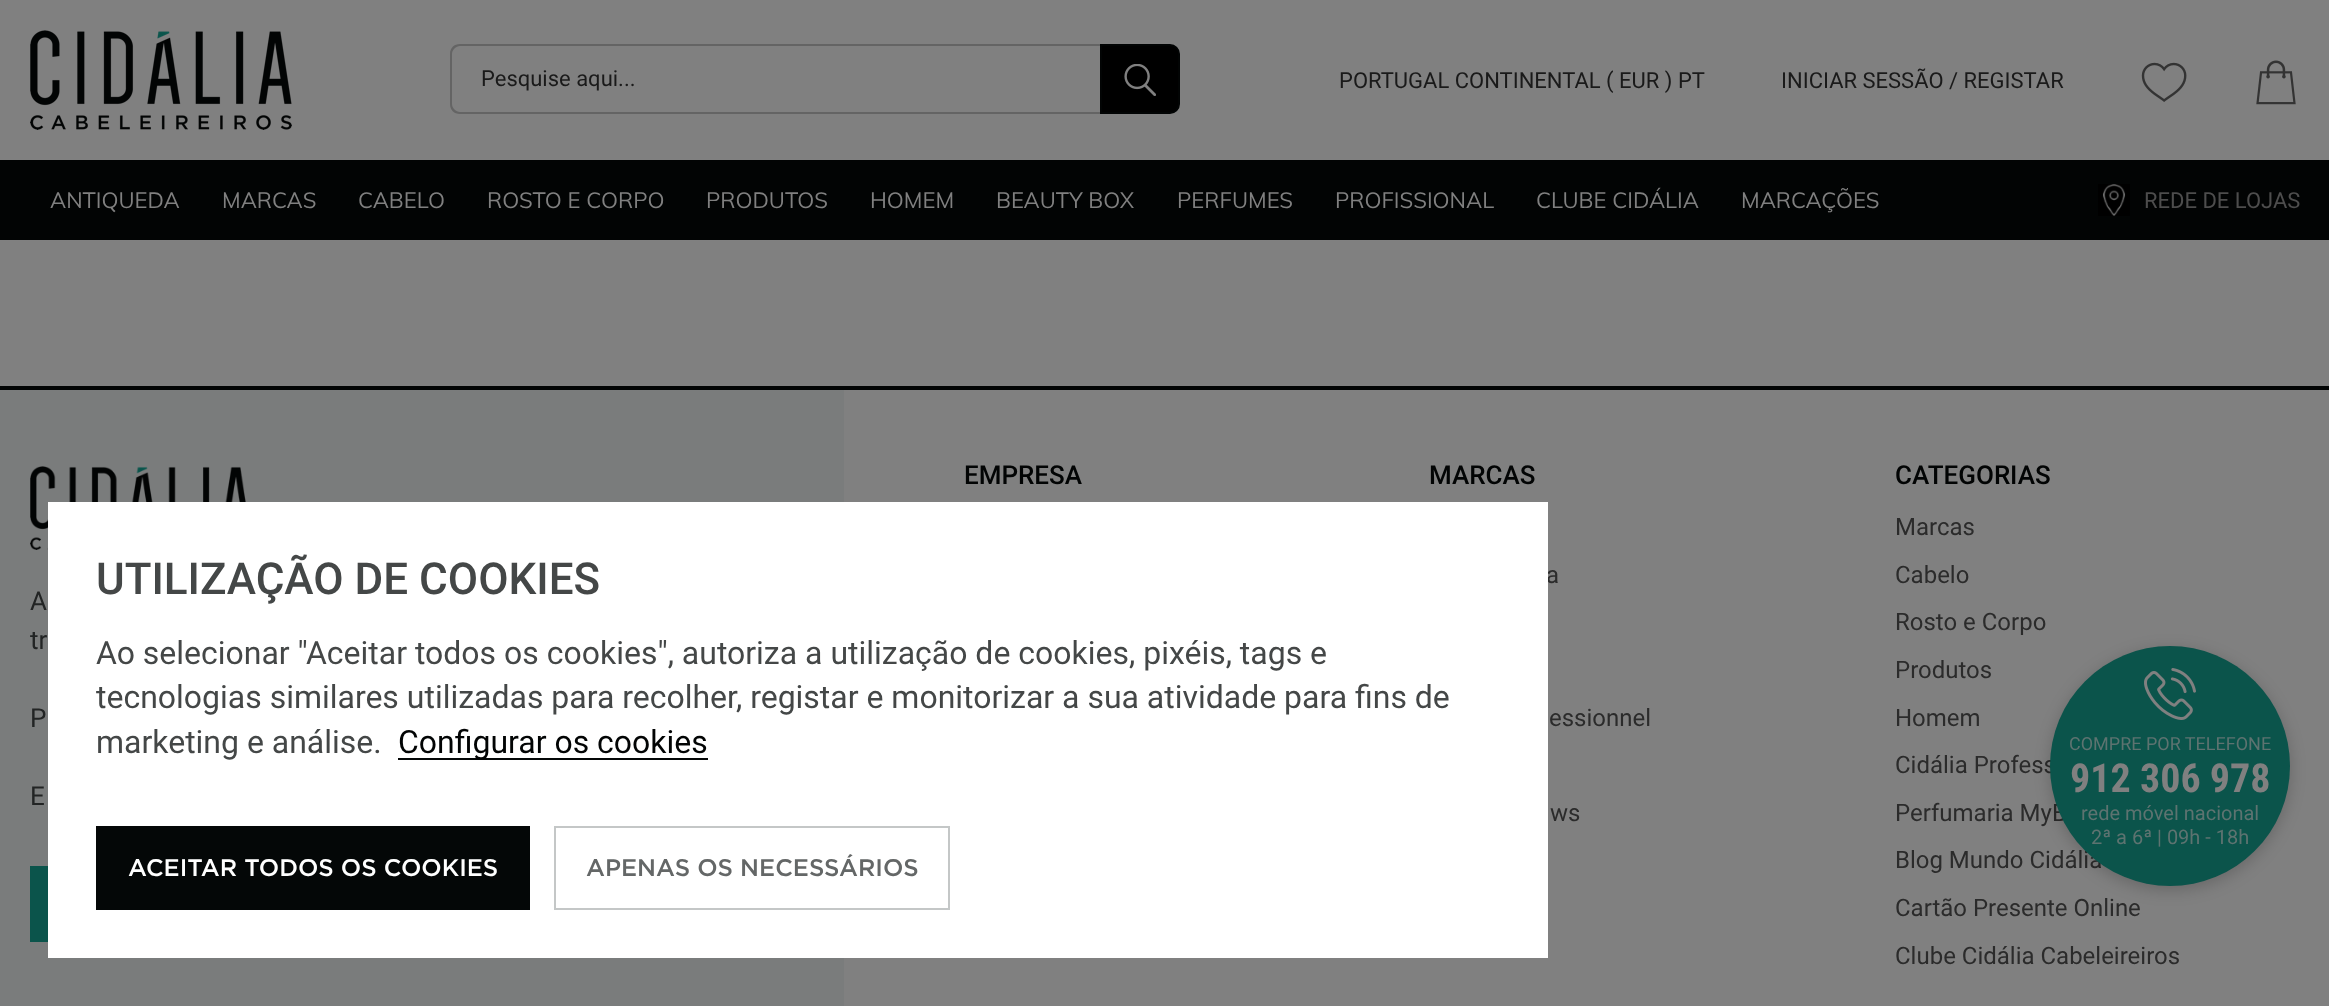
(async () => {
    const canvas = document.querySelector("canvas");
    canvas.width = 2329;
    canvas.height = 1006;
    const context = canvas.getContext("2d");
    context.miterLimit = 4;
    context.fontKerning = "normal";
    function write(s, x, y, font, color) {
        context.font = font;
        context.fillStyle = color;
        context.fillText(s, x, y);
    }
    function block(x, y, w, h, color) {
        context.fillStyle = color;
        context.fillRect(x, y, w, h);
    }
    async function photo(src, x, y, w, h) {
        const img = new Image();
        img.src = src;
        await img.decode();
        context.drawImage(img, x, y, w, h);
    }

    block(0, 0, 2329, 1006, "rgb(128, 128, 128)");
    await photo("media/1.png", 30, 30, 262, 100);
    context.fillStyle = "rgb(100, 100, 100)";
    context.beginPath();
    context.moveTo(460, 44);
    context.lineTo(1100, 44);
    context.lineTo(1100, 114);
    context.lineTo(460, 114);
    context.bezierCurveTo(454, 114, 450, 110, 450, 104);
    context.lineTo(450, 54);
    context.bezierCurveTo(450, 48, 454, 44, 460, 44);
    context.closePath();
    context.moveTo(460, 46);
    context.lineTo(1100, 46);
    context.lineTo(1100, 112);
    context.lineTo(460, 112);
    context.bezierCurveTo(456, 112, 452, 108, 452, 104);
    context.lineTo(452, 54);
    context.bezierCurveTo(452, 50, 456, 46, 460, 46);
    context.closePath();
    context.fill("evenodd");
    write("Pesquise aqui...", 481, 86, "22px Roboto", "rgb(26, 26, 26)");
    context.fillStyle = "rgb(0, 0, 0)";
    context.beginPath();
    context.roundRect(1101, 45, 78, 68, [0, 9, 9, 0]);
    context.fill();
    context.strokeStyle = "rgb(2, 4, 4)";
    context.lineWidth = 2;
    context.stroke();
    await photo("media/2.png", 1124, 64, 32, 32);
    write("PORTUGAL CONTINENTAL ( EUR ) PT", 1339, 88, "22px Roboto", "rgb(26, 26, 26)");
    write("INICIAR SESSÃO / REGISTAR", 1781, 88, "22px Roboto", "rgb(26, 26, 26)");
    await photo("media/3.png", 2141, 62, 46, 40);
    await photo("media/4.png", 2256, 60, 40, 45);
    block(0, 160, 2329, 80, "rgb(2, 4, 4)");
    write("ANTIQUEDA", 50, 208, "22px Muli", "rgb(128, 128, 128)");
    write("MARCAS", 222, 208, "22px Muli", "rgb(128, 128, 128)");
    write("CABELO", 358, 208, "22px Muli", "rgb(128, 128, 128)");
    write("ROSTO E CORPO", 487, 208, "22px Muli", "rgb(128, 128, 128)");
    write("PRODUTOS", 706, 208, "22px Muli", "rgb(128, 128, 128)");
    write("HOMEM", 870, 208, "22px Muli", "rgb(128, 128, 128)");
    write("BEAUTY BOX", 996, 208, "22px Muli", "rgb(128, 128, 128)");
    write("PERFUMES", 1177, 208, "22px Muli", "rgb(128, 128, 128)");
    write("PROFISSIONAL", 1335, 208, "22px Muli", "rgb(128, 128, 128)");
    write("CLUBE CIDÁLIA", 1536, 208, "22px Muli", "rgb(128, 128, 128)");
    write("MARCAÇÕES", 1741, 208, "22px Muli", "rgb(128, 128, 128)");
    await photo("media/5.png", 2098, 184, 32, 32);
    write("REDE DE LOJAS", 2144, 208, "22px Roboto", "rgb(77, 77, 77)");
    block(0, 386, 2329, 4, "rgb(2, 4, 4)");
    block(0, 390, 844, 616, "rgb(122, 124, 124)");
    await photo("media/6.png", 30, 466, 216, 84);
    write("A", 30, 610, "26px Roboto", "rgb(34, 36, 36)");
    write("tr", 30, 649, "26px Roboto", "rgb(34, 36, 36)");
    write("P", 30, 727, "26px Roboto", "rgb(34, 36, 36)");
    write("E", 30, 805, "26px Roboto", "rgb(34, 36, 36)");
    block(30, 866, 18, 76, "rgb(11, 84, 75)");
    write("EMPRESA", 964, 484, "500 26px Roboto", "rgb(2, 4, 4)");
    write("MARCAS", 1429, 484, "500 26px Roboto", "rgb(2, 4, 4)");
    write("a", 1546, 583, "24px Roboto", "rgb(43, 43, 43)");
    write("essionnel", 1549, 726, "24px Roboto", "rgb(43, 43, 43)");
    write("ws", 1550, 821, "24px Roboto", "rgb(43, 43, 43)");
    write("CATEGORIAS", 1895, 484, "500 26px Roboto", "rgb(2, 4, 4)");
    write("Marcas", 1895, 535, "24px Roboto", "rgb(43, 43, 43)");
    write("Cabelo", 1895, 583, "24px Roboto", "rgb(43, 43, 43)");
    write("Rosto e Corpo", 1895, 630, "24px Roboto", "rgb(43, 43, 43)");
    write("Produtos", 1895, 678, "24px Roboto", "rgb(43, 43, 43)");
    write("Homem", 1895, 726, "24px Roboto", "rgb(43, 43, 43)");
    write("Cidália Profess", 1895, 773, "24px Roboto", "rgb(43, 43, 43)");
    write("Perfumaria MyB", 1895, 821, "24px Roboto", "rgb(43, 43, 43)");
    write("Blog Mundo Cidália", 1895, 868, "24px Roboto", "rgb(43, 43, 43)");
    write("Cartão Presente Online", 1895, 916, "24px Roboto", "rgb(43, 43, 43)");
    write("Clube Cidália Cabeleireiros", 1895, 964, "24px Roboto", "rgb(43, 43, 43)");
    context.fillStyle = "rgba(0, 0, 0, 0.2)";
    context.filter = "blur(8px)";
    context.beginPath();
    context.roundRect(2050, 650, 240, 240, 120);
    context.fill();
    context.filter = "none";
    context.fillStyle = "rgb(11, 84, 75)";
    context.beginPath();
    context.arc(2170, 766, 120, 0, Math.PI * 2);
    context.fill();
    await photo("media/7.png", 2144, 668, 52, 52);
    write("COMPRE POR TELEFONE", 2069, 750, "18px Roboto", "rgb(93, 115, 112)");
    write("912 306 978", 2070, 792, "bold 40px Roboto Condensed", "rgb(128, 128, 128)");
    write("rede móvel nacional", 2081, 820, "20px Roboto", "rgb(93, 115, 112)");
    write("2ª a 6ª | 09h - 18h", 2091, 844, "20px Roboto", "rgb(93, 115, 112)");
    block(48, 502, 1500, 456, "rgb(255, 255, 255)");
    write("UTILIZAÇÃO DE COOKIES", 96, 594, "500 44px Roboto", "rgb(68, 71, 71)");
    write("Ao selecionar \"Aceitar todos os cookies\", autoriza a utilização de cookies, pixéis, tags e", 96, 664, "32px Roboto", "rgb(68, 71, 71)");
    write("tecnologias similares utilizadas para recolher, registar e monitorizar a sua atividade para fins de", 96, 708, "32px Roboto", "rgb(68, 71, 71)");
    write("marketing e análise.", 96, 753, "32px Roboto", "rgb(68, 71, 71)");
    block(398, 758, 310, 2, "rgb(4, 7, 7)");
    write("Configurar os cookies", 398, 753, "32px Roboto", "rgb(2, 4, 4)");
    block(96, 826, 434, 84, "rgb(4, 7, 7)");
    write("ACEITAR TODOS OS COOKIES", 128, 876, "500 24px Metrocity", "rgb(255, 255, 255)");
    context.strokeStyle = "rgb(196, 199, 199)";
    context.strokeRect(555, 827, 394, 82);
    write("APENAS OS NECESSÁRIOS", 586, 876, "500 24px Metrocity", "rgb(100, 103, 103)");
})();
